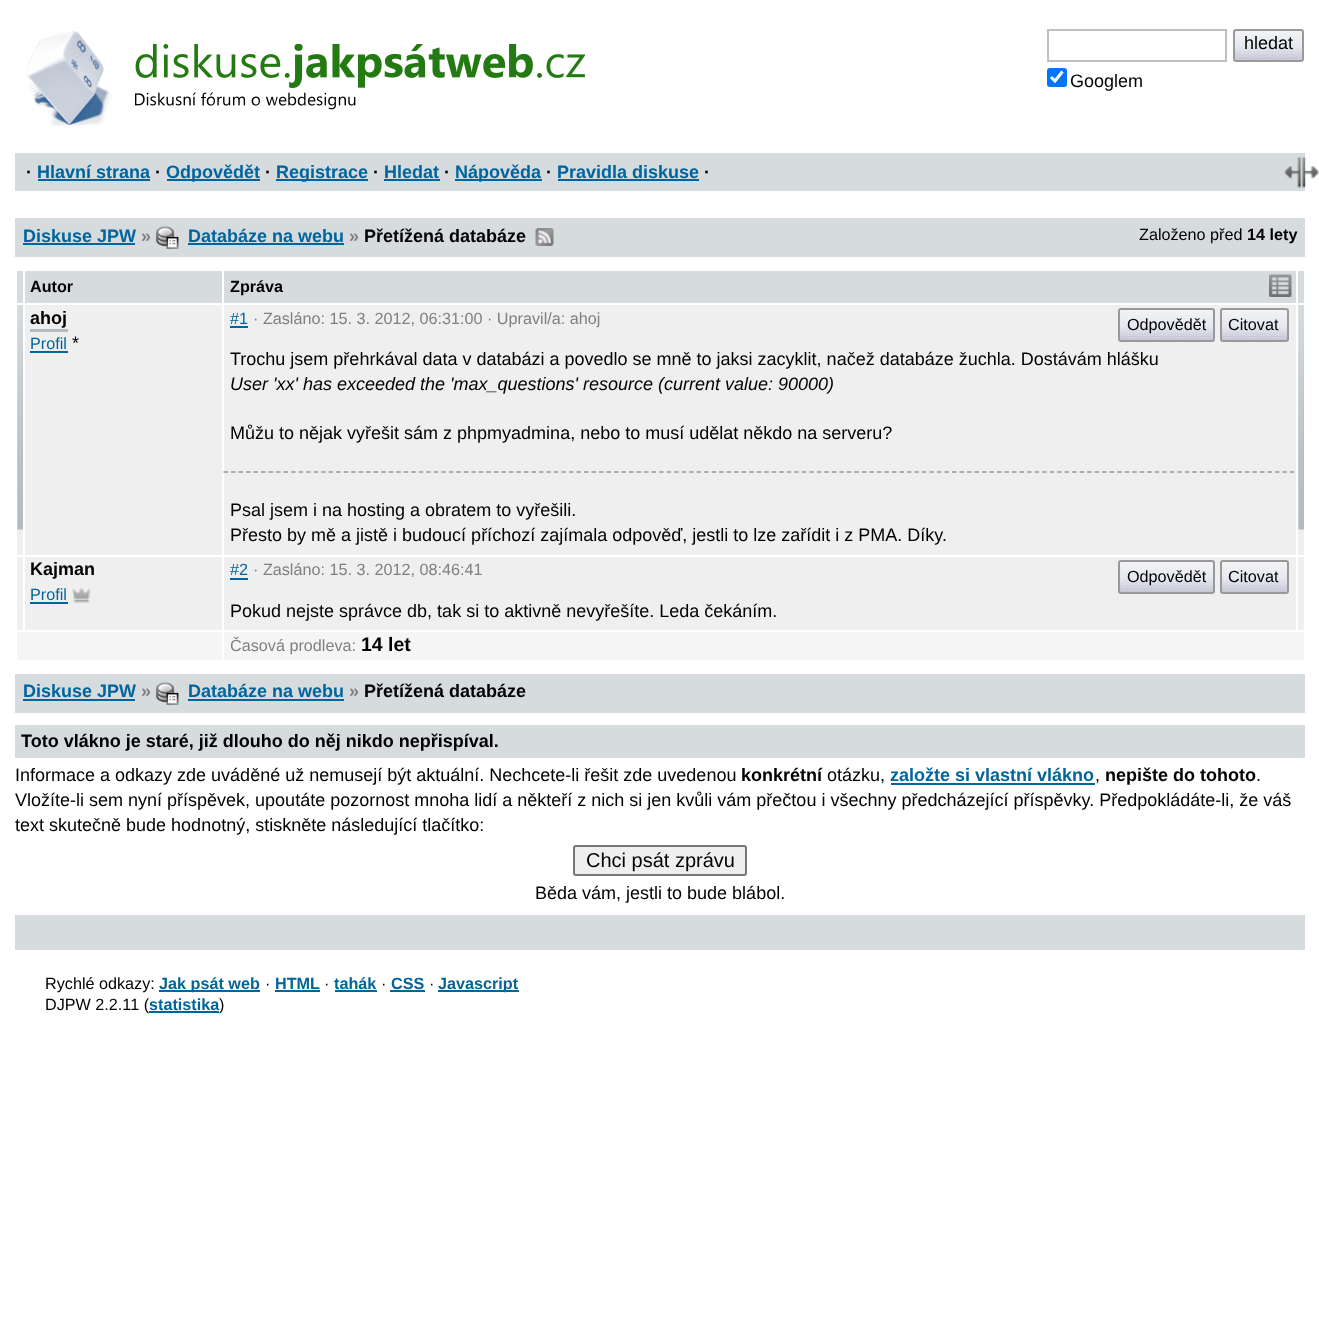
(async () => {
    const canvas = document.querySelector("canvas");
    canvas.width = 1319;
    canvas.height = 1329;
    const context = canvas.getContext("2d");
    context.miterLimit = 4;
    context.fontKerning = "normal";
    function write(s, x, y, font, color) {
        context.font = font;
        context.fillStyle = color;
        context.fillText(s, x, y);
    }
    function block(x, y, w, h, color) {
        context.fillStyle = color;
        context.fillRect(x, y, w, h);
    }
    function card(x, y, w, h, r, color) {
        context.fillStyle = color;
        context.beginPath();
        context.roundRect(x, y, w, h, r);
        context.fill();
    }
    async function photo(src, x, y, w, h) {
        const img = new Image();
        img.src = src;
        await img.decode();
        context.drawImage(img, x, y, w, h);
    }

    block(0, 0, 1319, 1329, "rgb(255, 255, 255)");
    await photo("media/1.png", 27, 31, 85, 95);
    await photo("media/2.png", 135, 44, 450, 66);
    context.strokeStyle = "rgb(192, 192, 192)";
    context.lineWidth = 2;
    context.strokeRect(1048, 30, 178, 31);
    card(1235, 30, 67, 30, 1.5, "rgb(214, 219, 222)");
    await photo("media/3.png", 1235, 31, 67, 29);
    context.beginPath();
    context.roundRect(1234, 30, 69, 31, 2);
    context.strokeStyle = "rgb(153, 153, 153)";
    context.stroke();
    write("hledat", 1244, 49, "18px Liberation Sans", "rgb(0, 0, 0)");
    card(1047, 68, 20, 19, 3, "rgb(0, 117, 255)");
    context.beginPath();
    context.moveTo(1051, 77);
    context.lineTo(1055, 81);
    context.lineTo(1062.5, 71.5);
    context.strokeStyle = "rgb(255, 255, 255)";
    context.lineWidth = 3.1;
    context.stroke();
    write("Googlem", 1070, 87, "18px Liberation Sans", "rgb(0, 0, 0)");
    block(15, 153, 1290, 38, "rgb(214, 219, 222)");
    write("·", 26, 178, "bold 18px Liberation Sans", "rgb(0, 0, 0)");
    write("Hlavní strana", 37, 178, "bold 18px Liberation Sans", "rgb(0, 101, 156)");
    block(38, 179, 112, 2, "rgb(0, 101, 156)");
    write("·", 155, 178, "bold 18px Liberation Sans", "rgb(0, 0, 0)");
    block(167, 179, 93, 2, "rgb(0, 101, 156)");
    write("Odpovědět", 166, 178, "bold 18px Liberation Sans", "rgb(0, 101, 156)");
    write("·", 265, 178, "bold 18px Liberation Sans", "rgb(0, 0, 0)");
    block(276, 179, 92, 2, "rgb(0, 101, 156)");
    write("Registrace", 276, 178, "bold 18px Liberation Sans", "rgb(0, 101, 156)");
    write("·", 373, 178, "bold 18px Liberation Sans", "rgb(0, 0, 0)");
    write("Hledat", 384, 178, "bold 18px Liberation Sans", "rgb(0, 101, 156)");
    block(384, 179, 56, 2, "rgb(0, 101, 156)");
    write("·", 444, 178, "bold 18px Liberation Sans", "rgb(0, 0, 0)");
    block(455, 179, 87, 2, "rgb(0, 101, 156)");
    write("Nápověda", 455, 178, "bold 18px Liberation Sans", "rgb(0, 101, 156)");
    write("·", 546, 178, "bold 18px Liberation Sans", "rgb(0, 0, 0)");
    write("Pravidla diskuse", 557, 178, "bold 18px Liberation Sans", "rgb(0, 101, 156)");
    block(558, 179, 141, 2, "rgb(0, 101, 156)");
    write("·", 704, 178, "bold 18px Liberation Sans", "rgb(0, 0, 0)");
    await photo("media/4.png", 1284, 157, 35, 31);
    block(15, 218, 1290, 39, "rgb(214, 219, 222)");
    write("Diskuse JPW", 23, 242, "bold 18px Liberation Sans", "rgb(0, 101, 156)");
    block(23, 243, 112, 2, "rgb(0, 101, 156)");
    write("»", 141, 242, "bold 18px Liberation Sans", "rgb(128, 128, 128)");
    await photo("media/5.png", 156, 226, 23, 23);
    write("Databáze na webu", 188, 242, "bold 18px Liberation Sans", "rgb(0, 101, 156)");
    block(188, 243, 156, 2, "rgb(0, 101, 156)");
    write("»", 349, 242, "bold 18px Liberation Sans", "rgb(128, 128, 128)");
    write("Přetížená databáze", 364, 242, "bold 18px Liberation Sans", "rgb(0, 0, 0)");
    await photo("media/6.png", 535, 228, 19, 18);
    write("Založeno před", 1139, 240, "16.2px Liberation Sans", "rgb(0, 0, 0)");
    write("14 lety", 1247, 240, "bold 16.2px Liberation Sans", "rgb(0, 0, 0)");
    block(17, 270, 6, 33, "rgb(214, 219, 222)");
    block(1298, 270, 6, 33, "rgb(214, 219, 222)");
    block(15, 270, 1290, 1, "rgb(255, 255, 255)");
    block(25, 271, 197, 32, "rgb(214, 219, 222)");
    write("Autor", 30, 292, "bold 16.2px Liberation Sans", "rgb(0, 0, 0)");
    block(224, 271, 1072, 32, "rgb(214, 219, 222)");
    write("Zpráva", 230, 292, "bold 16.2px Liberation Sans", "rgb(0, 0, 0)");
    block(25, 305, 1271, 250, "rgb(239, 239, 239)");
    await photo("media/7.png", 17, 305, 6, 250);
    write("ahoj", 30, 324, "bold 18px Liberation Sans", "rgb(0, 0, 0)");
    block(30, 329, 38, 3, "rgb(177, 187, 193)");
    write("Profil", 30, 349, "16.2px Liberation Sans", "rgb(0, 101, 156)");
    block(30, 351, 38, 2, "rgb(0, 101, 156)");
    write("*", 72, 349, "18px Liberation Sans", "rgb(0, 0, 0)");
    write("#1", 230, 324, "16.2px Liberation Sans", "rgb(0, 101, 156)");
    block(230, 326, 18, 2, "rgb(0, 101, 156)");
    write("· Zasláno: 15. 3. 2012, 06:31:00 · Upravil/a: ahoj", 253, 324, "16.2px Liberation Sans", "rgb(128, 128, 128)");
    block(1120, 310, 93, 30, "rgb(214, 219, 222)");
    await photo("media/8.png", 1120, 310, 93, 30);
    context.beginPath();
    context.roundRect(1119, 309, 95, 32, 2);
    context.strokeStyle = "rgb(153, 153, 153)";
    context.lineWidth = 2;
    context.stroke();
    write("Odpovědět", 1127, 330, "16.2px Liberation Sans", "rgb(0, 0, 0)");
    block(1222, 310, 65, 30, "rgb(214, 219, 222)");
    await photo("media/9.png", 1222, 310, 65, 30);
    context.beginPath();
    context.roundRect(1221, 309, 67, 32, 2);
    context.stroke();
    write("Citovat", 1228, 330, "16.2px Liberation Sans", "rgb(0, 0, 0)");
    write("Trochu jsem přehrkával data v databázi a povedlo se mně to jaksi zacyklit, načež databáze žuchla. Dostávám hlášku", 230, 365, "18px Liberation Sans", "rgb(0, 0, 0)");
    write("User 'xx' has exceeded the 'max_questions' resource (current value: 90000)", 230, 390, "italic 18px Liberation Sans", "rgb(0, 0, 0)");
    write("Můžu to nějak vyřešit sám z phpmyadmina, nebo to musí udělat někdo na serveru?", 230, 439, "18px Liberation Sans", "rgb(0, 0, 0)");
    block(17, 557, 1287, 73, "rgb(239, 239, 239)");
    block(222, 303, 2, 329, "rgb(255, 255, 255)");
    context.beginPath();
    context.moveTo(223.5, 472);
    context.lineTo(1296, 472);
    context.lineWidth = 1.5;
    context.setLineDash([4.5, 3.01]);
    context.stroke();
    write("Psal jsem i na hosting a obratem to vyřešili.", 230, 516, "18px Liberation Sans", "rgb(0, 0, 0)");
    write("Přesto by mě a jistě i budoucí příchozí zajímala odpověď, jestli to lze zařídit i z PMA. Díky.", 230, 541, "18px Liberation Sans", "rgb(0, 0, 0)");
    await photo("media/10.png", 1298, 305, 6, 250);
    block(23, 555, 2, 77, "rgb(255, 255, 255)");
    write("Kajman", 30, 575, "bold 18px Liberation Sans", "rgb(0, 0, 0)");
    write("Profil", 30, 600, "16.2px Liberation Sans", "rgb(0, 101, 156)");
    block(30, 602, 38, 2, "rgb(0, 101, 156)");
    await photo("media/11.png", 72, 587, 18, 17);
    write("#2", 230, 575, "16.2px Liberation Sans", "rgb(0, 101, 156)");
    block(230, 578, 18, 2, "rgb(0, 101, 156)");
    write("· Zasláno: 15. 3. 2012, 08:46:41", 253, 575, "16.2px Liberation Sans", "rgb(128, 128, 128)");
    block(1120, 562, 93, 30, "rgb(214, 219, 222)");
    await photo("media/8.png", 1120, 562, 93, 30);
    context.beginPath();
    context.roundRect(1119, 561, 95, 32, 2);
    context.lineWidth = 2;
    context.setLineDash([]);
    context.stroke();
    write("Odpovědět", 1127, 582, "16.2px Liberation Sans", "rgb(0, 0, 0)");
    block(1222, 562, 65, 30, "rgb(214, 219, 222)");
    await photo("media/9.png", 1222, 562, 65, 30);
    context.beginPath();
    context.roundRect(1221, 561, 67, 32, 2);
    context.stroke();
    write("Citovat", 1228, 582, "16.2px Liberation Sans", "rgb(0, 0, 0)");
    write("Pokud nejste správce db, tak si to aktivně nevyřešíte. Leda čekáním.", 230, 617, "18px Liberation Sans", "rgb(0, 0, 0)");
    block(1296, 555, 2, 77, "rgb(255, 255, 255)");
    block(17, 632, 205, 28, "rgb(245, 245, 245)");
    block(224, 632, 1080, 28, "rgb(245, 245, 245)");
    write("Časová prodleva:", 230, 651, "16.2px Liberation Sans", "rgb(128, 128, 128)");
    write("14 let", 361, 651, "bold 19.5px Liberation Sans", "rgb(0, 0, 0)");
    await photo("media/12.png", 1269, 274, 23, 23);
    block(15, 674, 1290, 39, "rgb(214, 219, 222)");
    write("Diskuse JPW", 23, 697, "bold 18px Liberation Sans", "rgb(0, 101, 156)");
    block(23, 699, 112, 2, "rgb(0, 101, 156)");
    write("»", 141, 697, "bold 18px Liberation Sans", "rgb(128, 128, 128)");
    await photo("media/5.png", 156, 682, 23, 23);
    write("Databáze na webu", 188, 697, "bold 18px Liberation Sans", "rgb(0, 101, 156)");
    block(188, 699, 156, 2, "rgb(0, 101, 156)");
    write("»", 349, 697, "bold 18px Liberation Sans", "rgb(128, 128, 128)");
    write("Přetížená databáze", 364, 697, "bold 18px Liberation Sans", "rgb(0, 0, 0)");
    block(15, 725, 1290, 33, "rgb(214, 219, 222)");
    write("Toto vlákno je staré, již dlouho do něj nikdo nepřispíval.", 21, 747, "bold 18px Liberation Sans", "rgb(0, 0, 0)");
    write("Informace a odkazy zde uváděné už nemusejí být aktuální. Nechcete-li řešit zde uvedenou", 15, 781, "18px Liberation Sans", "rgb(0, 0, 0)");
    write("konkrétní", 741, 781, "bold 18px Liberation Sans", "rgb(0, 0, 0)");
    write("otázku,", 827, 781, "18px Liberation Sans", "rgb(0, 0, 0)");
    write("založte si vlastní vlákno", 890, 781, "bold 18px Liberation Sans", "rgb(0, 101, 156)");
    block(891, 783, 204, 2, "rgb(0, 101, 156)");
    write(",", 1095, 781, "18px Liberation Sans", "rgb(0, 0, 0)");
    write("nepište do tohoto", 1105, 781, "bold 18px Liberation Sans", "rgb(0, 0, 0)");
    write(".", 1256, 781, "18px Liberation Sans", "rgb(0, 0, 0)");
    write("Vložíte-li sem nyní příspěvek, upoutáte pozornost mnoha lidí a někteří z nich si jen kvůli vám přečtou i všechny předcházející příspěvky. Předpokládáte-li, že váš", 15, 806, "18px Liberation Sans", "rgb(0, 0, 0)");
    write("text skutečně bude hodnotný, stiskněte následující tlačítko:", 15, 831, "18px Liberation Sans", "rgb(0, 0, 0)");
    context.fillStyle = "rgb(239, 239, 239)";
    context.beginPath();
    context.roundRect(574, 846, 172, 29, 2);
    context.fill();
    context.strokeStyle = "rgb(118, 118, 118)";
    context.stroke();
    write("Chci psát zprávu", 586, 867, "20px Liberation Sans", "rgb(0, 0, 0)");
    write("Běda vám, jestli to bude blábol.", 535, 899, "18px Liberation Sans", "rgb(0, 0, 0)");
    block(15, 915, 1290, 35, "rgb(214, 219, 222)");
    write("Rychlé odkazy:", 45, 989, "16.2px Liberation Sans", "rgb(0, 0, 0)");
    block(159, 990, 101, 2, "rgb(0, 101, 156)");
    write("Jak psát web", 159, 989, "bold 16.2px Liberation Sans", "rgb(0, 101, 156)");
    write("·", 265, 989, "16.2px Liberation Sans", "rgb(0, 0, 0)");
    write("HTML", 275, 989, "bold 16.2px Liberation Sans", "rgb(0, 101, 156)");
    block(275, 990, 45, 2, "rgb(0, 101, 156)");
    write("·", 324, 989, "16.2px Liberation Sans", "rgb(0, 0, 0)");
    write("tahák", 334, 989, "bold 16.2px Liberation Sans", "rgb(0, 101, 156)");
    block(335, 990, 42, 2, "rgb(0, 101, 156)");
    write("·", 381, 989, "16.2px Liberation Sans", "rgb(0, 0, 0)");
    write("CSS", 391, 989, "bold 16.2px Liberation Sans", "rgb(0, 101, 156)");
    block(390, 990, 35, 2, "rgb(0, 101, 156)");
    write("·", 429, 989, "16.2px Liberation Sans", "rgb(0, 0, 0)");
    block(438, 990, 81, 2, "rgb(0, 101, 156)");
    write("Javascript", 438, 989, "bold 16.2px Liberation Sans", "rgb(0, 101, 156)");
    write("DJPW 2.2.11 (", 45, 1010, "16.2px Liberation Sans", "rgb(0, 0, 0)");
    block(149, 1011, 70, 2, "rgb(0, 101, 156)");
    write("statistika", 149, 1010, "bold 16.2px Liberation Sans", "rgb(0, 101, 156)");
    write(")", 219, 1010, "16.2px Liberation Sans", "rgb(0, 0, 0)");
})();
